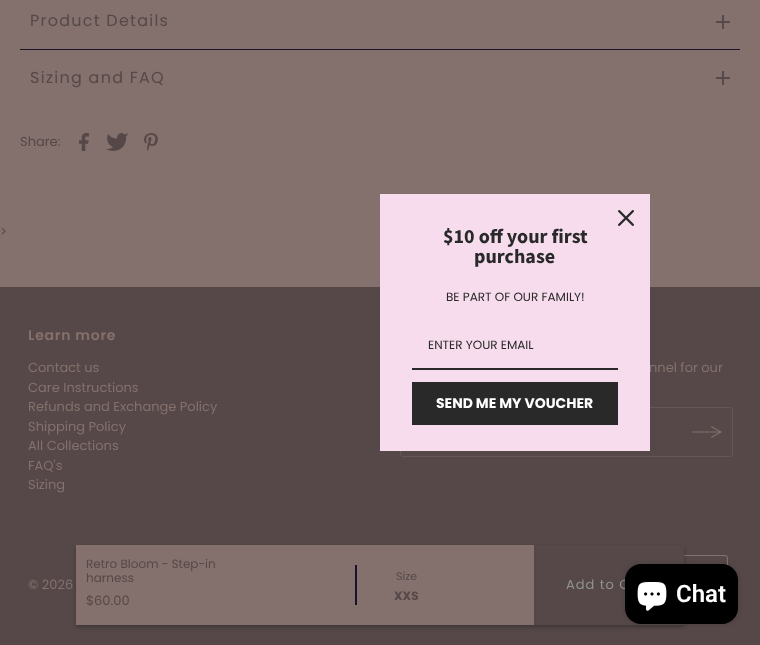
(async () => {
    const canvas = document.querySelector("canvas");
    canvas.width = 760;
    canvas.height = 645;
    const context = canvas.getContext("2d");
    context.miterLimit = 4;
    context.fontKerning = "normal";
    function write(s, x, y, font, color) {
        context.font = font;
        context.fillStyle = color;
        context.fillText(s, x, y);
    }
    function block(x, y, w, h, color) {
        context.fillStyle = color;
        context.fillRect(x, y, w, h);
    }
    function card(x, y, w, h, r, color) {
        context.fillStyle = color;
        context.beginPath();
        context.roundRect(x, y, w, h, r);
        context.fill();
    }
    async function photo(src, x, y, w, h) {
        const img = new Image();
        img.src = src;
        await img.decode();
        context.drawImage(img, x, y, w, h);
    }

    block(0, 0, 760, 645, "rgb(132, 113, 109)");
    write(">", 0, 236, "13px Poppins", "rgb(86, 72, 72)");
    context.letterSpacing = "1.25px";
    write("Product Details", 30, 26, "16px Poppins", "rgb(86, 72, 72)");
    await photo("media/1.png", 716, 15, 14, 14);
    block(20, 49, 720, 1, "rgb(27, 19, 40)");
    write("Sizing and FAQ", 30, 83, "16px Poppins", "rgb(86, 72, 72)");
    await photo("media/1.png", 716, 71, 14, 14);
    context.letterSpacing = "0px";
    write("Share:", 20, 146, "13px Poppins", "rgb(86, 72, 72)");
    await photo("media/2.png", 79, 133, 10, 18);
    await photo("media/3.png", 106, 133, 22, 18);
    await photo("media/4.png", 144, 133, 14, 18);
    block(0, 287, 760, 358, "rgb(86, 72, 72)");
    context.beginPath();
    context.roundRect(558.5, 555.5, 169, 49, 2.5);
    context.strokeStyle = "rgb(132, 113, 109)";
    context.stroke();
    context.fillStyle = "rgba(34, 35, 35, 0.5)";
    context.filter = "blur(2px)";
    context.beginPath();
    context.rect(76, 547, 608, 80);
    context.fill();
    context.filter = "none";
    block(76, 545, 458, 80, "rgb(132, 113, 109)");
    write("Retro Bloom - Step-in", 86, 568, "12px Poppins", "rgb(86, 72, 72)");
    write("harness", 86, 582, "12px Poppins", "rgb(86, 72, 72)");
    write("$60.00", 86, 605, "13px Poppins", "rgb(86, 72, 72)");
    block(355, 565, 2, 40, "rgb(27, 19, 40)");
    write("Size", 396, 580, "11px Poppins", "rgb(86, 72, 72)");
    write("XXS", 394, 600, "bold 12px Poppins", "rgb(86, 72, 72)");
    block(534, 545, 150, 80, "rgb(86, 72, 72)");
    context.letterSpacing = "1px";
    write("Add to C", 566, 589, "13px Poppins", "rgb(145, 146, 146)");
    context.letterSpacing = "0.75px";
    write("Learn more", 28, 340, "600 14px Poppins", "rgb(132, 113, 109)");
    context.letterSpacing = "0px";
    write("Contact us", 28, 372, "13px Poppins", "rgb(132, 113, 109)");
    write("Care Instructions", 28, 392, "13px Poppins", "rgb(132, 113, 109)");
    write("Refunds and Exchange Policy", 28, 411, "13px Poppins", "rgb(132, 113, 109)");
    write("Shipping Policy", 28, 431, "13px Poppins", "rgb(132, 113, 109)");
    write("All Collections", 28, 450, "13px Poppins", "rgb(132, 113, 109)");
    write("FAQ's", 28, 470, "13px Poppins", "rgb(132, 113, 109)");
    write("Sizing", 28, 489, "13px Poppins", "rgb(132, 113, 109)");
    write("nnel for our", 649, 372, "13px Poppins", "rgb(132, 113, 109)");
    context.beginPath();
    context.roundRect(400.5, 407.5, 332, 49, 2.5);
    context.strokeStyle = "rgb(102, 87, 85)";
    context.stroke();
    context.beginPath();
    context.moveTo(711.5, 426);
    context.lineTo(722, 432);
    context.lineTo(711.5, 438);
    context.lineTo(711, 437);
    context.lineTo(719, 432.5);
    context.lineTo(692, 432.5);
    context.lineTo(692, 431.5);
    context.lineTo(719, 431.5);
    context.lineTo(711, 427);
    context.closePath();
    context.fill();
    write("© 2026", 28, 589, "13px Poppins", "rgb(132, 113, 109)");
    block(380, 194, 270, 257, "rgb(247, 220, 237)");
    await photo("media/5.png", 618, 210, 16, 16);
    write("$10 off your first", 443, 243, "bold 20px Source Sans Pro", "rgb(41, 41, 41)");
    write("purchase", 474, 263, "bold 20px Source Sans Pro", "rgb(41, 41, 41)");
    write("BE PART OF OUR FAMILY!", 446, 301, "12px 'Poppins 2'", "rgb(41, 41, 41)");
    block(412, 368, 206, 2, "rgb(41, 41, 41)");
    write("ENTER YOUR EMAIL", 428, 349, "12px 'Poppins 2'", "rgb(41, 41, 41)");
    block(412, 382, 206, 43, "rgb(41, 41, 41)");
    write("SEND ME MY VOUCHER", 436, 408, "bold 14px Poppins", "rgb(255, 255, 255)");
    context.fillStyle = "rgba(0, 0, 0, 0.15)";
    context.filter = "blur(2.5px)";
    context.beginPath();
    context.roundRect(625, 564, 113, 60, 16);
    context.fill();
    context.filter = "none";
    card(625, 564, 113, 60, 16, "rgb(0, 0, 0)");
    await photo("media/6.png", 637, 582, 30, 29);
    write("Chat", 676, 602, "600 24px Roboto", "rgb(255, 255, 255)");
})();
